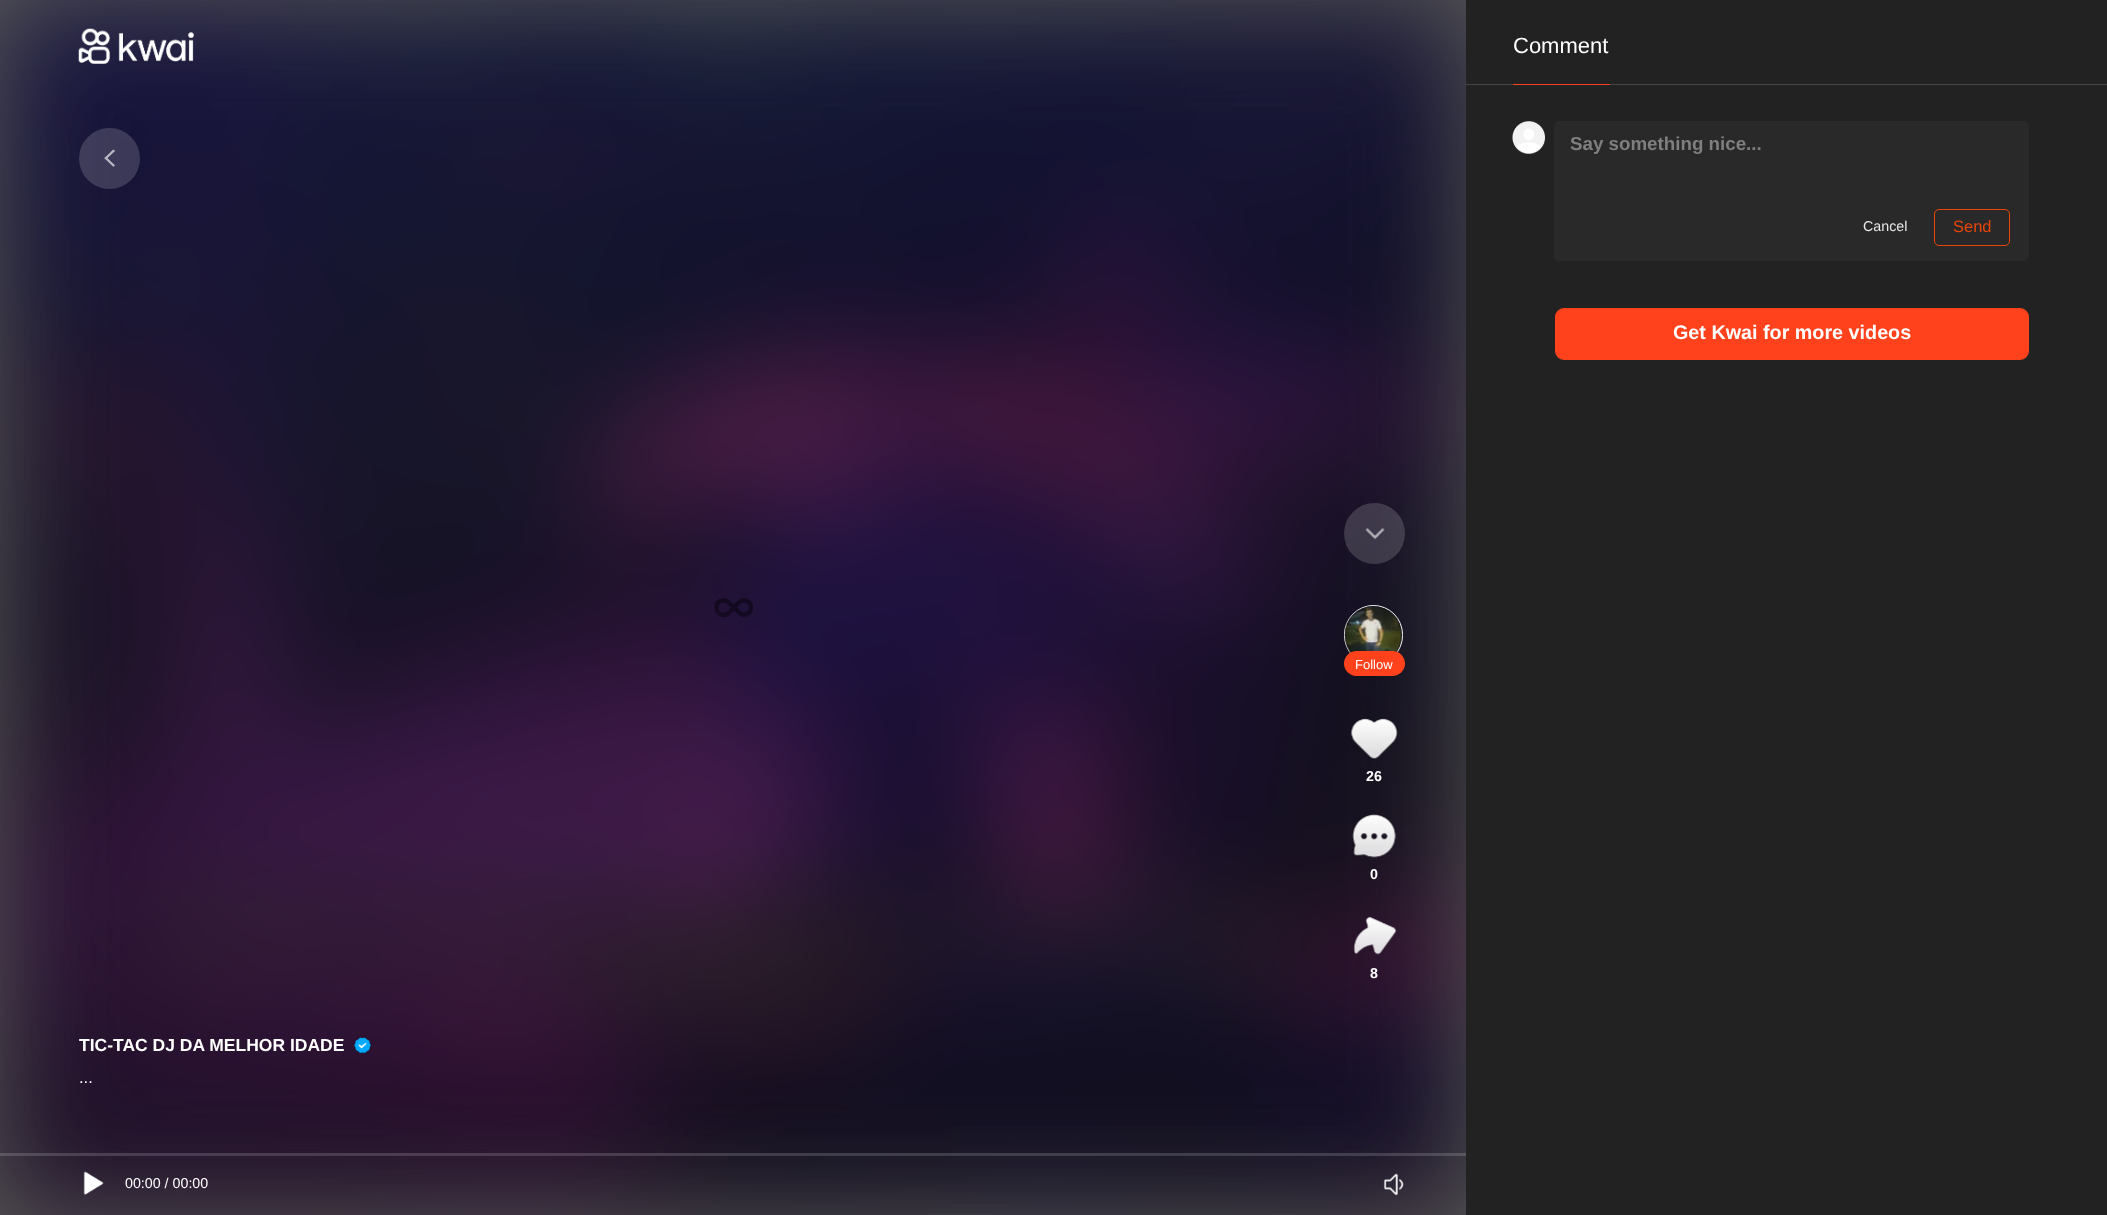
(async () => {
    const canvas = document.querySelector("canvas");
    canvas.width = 2107;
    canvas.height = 1215;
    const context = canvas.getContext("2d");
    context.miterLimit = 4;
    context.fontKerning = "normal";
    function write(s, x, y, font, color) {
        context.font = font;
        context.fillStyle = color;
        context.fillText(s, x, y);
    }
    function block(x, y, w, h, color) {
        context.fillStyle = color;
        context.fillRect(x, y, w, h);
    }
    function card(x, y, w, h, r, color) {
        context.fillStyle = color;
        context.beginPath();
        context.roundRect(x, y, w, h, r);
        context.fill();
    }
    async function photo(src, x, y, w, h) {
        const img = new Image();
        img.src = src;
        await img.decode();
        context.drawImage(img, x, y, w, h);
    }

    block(0, 0, 2107, 1215, "rgb(88, 88, 88)");
    await photo("media/3.png", 0, 0, 1466, 1215);
    await photo("media/1.png", 78, 28, 116, 36);
    block(1466, 0, 641, 1215, "rgb(34, 34, 34)");
    block(1466, 84, 641, 1, "rgb(69, 69, 69)");
    block(1513, 84, 97, 1, "rgb(255, 66, 28)");
    write("Comment", 1513, 53, "22px Liberation Sans", "rgb(255, 255, 255)");
    await photo("media/2.png", 1512, 121, 33, 33);
    context.fillStyle = "rgb(41, 41, 41)";
    context.beginPath();
    context.roundRect(1554, 121, 475, 88, [5, 5, 0, 0]);
    context.fill();
    write("Say something nice...", 1570, 150, "bold 18.75px Liberation Sans", "rgb(127, 127, 127)");
    context.fillStyle = "rgb(41, 41, 41)";
    context.beginPath();
    context.roundRect(1554, 209, 475, 52, [0, 0, 5, 5]);
    context.fill();
    write("Cancel", 1863, 231, "14.25px Liberation Sans", "rgb(232, 232, 232)");
    context.beginPath();
    context.roundRect(1934.5, 209.5, 75, 36, 4.5);
    context.strokeStyle = "rgb(234, 69, 9)";
    context.stroke();
    write("Send", 1953, 232, "16.5px Liberation Sans", "rgb(234, 69, 9)");
    card(1555, 308, 474, 52, 9, "rgb(255, 66, 28)");
    write("Get Kwai for more videos", 1673, 339, "bold 19.75px Liberation Sans", "rgb(255, 255, 255)");
    context.fillStyle = "rgba(255, 255, 255, 0.16)";
    context.beginPath();
    context.arc(1374.5, 533.5, 30.5, 0, Math.PI * 2);
    context.fill();
    await photo("media/4.png", 1365, 528, 20, 12);
    context.beginPath();
    context.roundRect(1344.5, 605.5, 58, 59, 29);
    context.strokeStyle = "rgb(255, 255, 255)";
    context.stroke();
    await photo("media/5.png", 1344, 606, 58, 47);
    card(1344, 651, 61, 25, 12.5, "rgb(255, 66, 28)");
    write("Follow", 1355, 669, "13px Liberation Sans", "rgb(255, 255, 255)");
    await photo("media/6.png", 1351, 718, 47, 41);
    write("26", 1366, 781, "bold 14.25px Liberation Sans", "rgb(255, 255, 255)");
    await photo("media/7.png", 1352, 814, 44, 44);
    write("0", 1370, 879, "bold 14.25px Liberation Sans", "rgb(255, 255, 255)");
    await photo("media/8.png", 1353, 917, 44, 38);
    write("8", 1370, 978, "bold 14.25px Liberation Sans", "rgb(255, 255, 255)");
    write("TIC-TAC DJ DA MELHOR IDADE", 79, 1051, "bold 17.5px Liberation Sans", "rgb(255, 255, 255)");
    await photo("media/9.png", 354, 1037, 17, 17);
    write("...", 79, 1083, "16.5px Liberation Sans", "rgb(255, 255, 255)");
    context.beginPath();
    context.moveTo(734, 607.5);
    context.lineTo(740, 601.5);
    context.bezierCurveTo(741.5, 600.5, 743.5, 600, 745.5, 600.5);
    context.bezierCurveTo(754.5, 602, 752, 616.5, 742.5, 614.5);
    context.bezierCurveTo(740, 614, 738.5, 612.5, 737, 610.5);
    context.lineTo(727.5, 601.5);
    context.bezierCurveTo(726, 600.5, 724, 600, 722, 600.5);
    context.bezierCurveTo(711.5, 602.5, 717, 619, 727, 614);
    context.bezierCurveTo(729.5, 612.5, 731.5, 609.5, 734, 607.5);
    context.strokeStyle = "rgba(0, 0, 0, 0.4)";
    context.lineWidth = 4.4;
    context.lineCap = "round";
    context.stroke();
    block(0, 1153, 1466, 3, "rgba(255, 255, 255, 0.16)");
    await photo("media/10.png", 83, 1171, 21, 24);
    write("00:00 / 00:00", 125, 1188, "14.25px Liberation Sans", "rgb(255, 255, 255)");
    await photo("media/11.png", 1383, 1173, 21, 23);
    context.fillStyle = "rgba(255, 255, 255, 0.16)";
    context.beginPath();
    context.arc(109.5, 158.5, 30.5, 0, Math.PI * 2);
    context.fill();
    await photo("media/12.png", 104, 149, 11, 18);
})();
